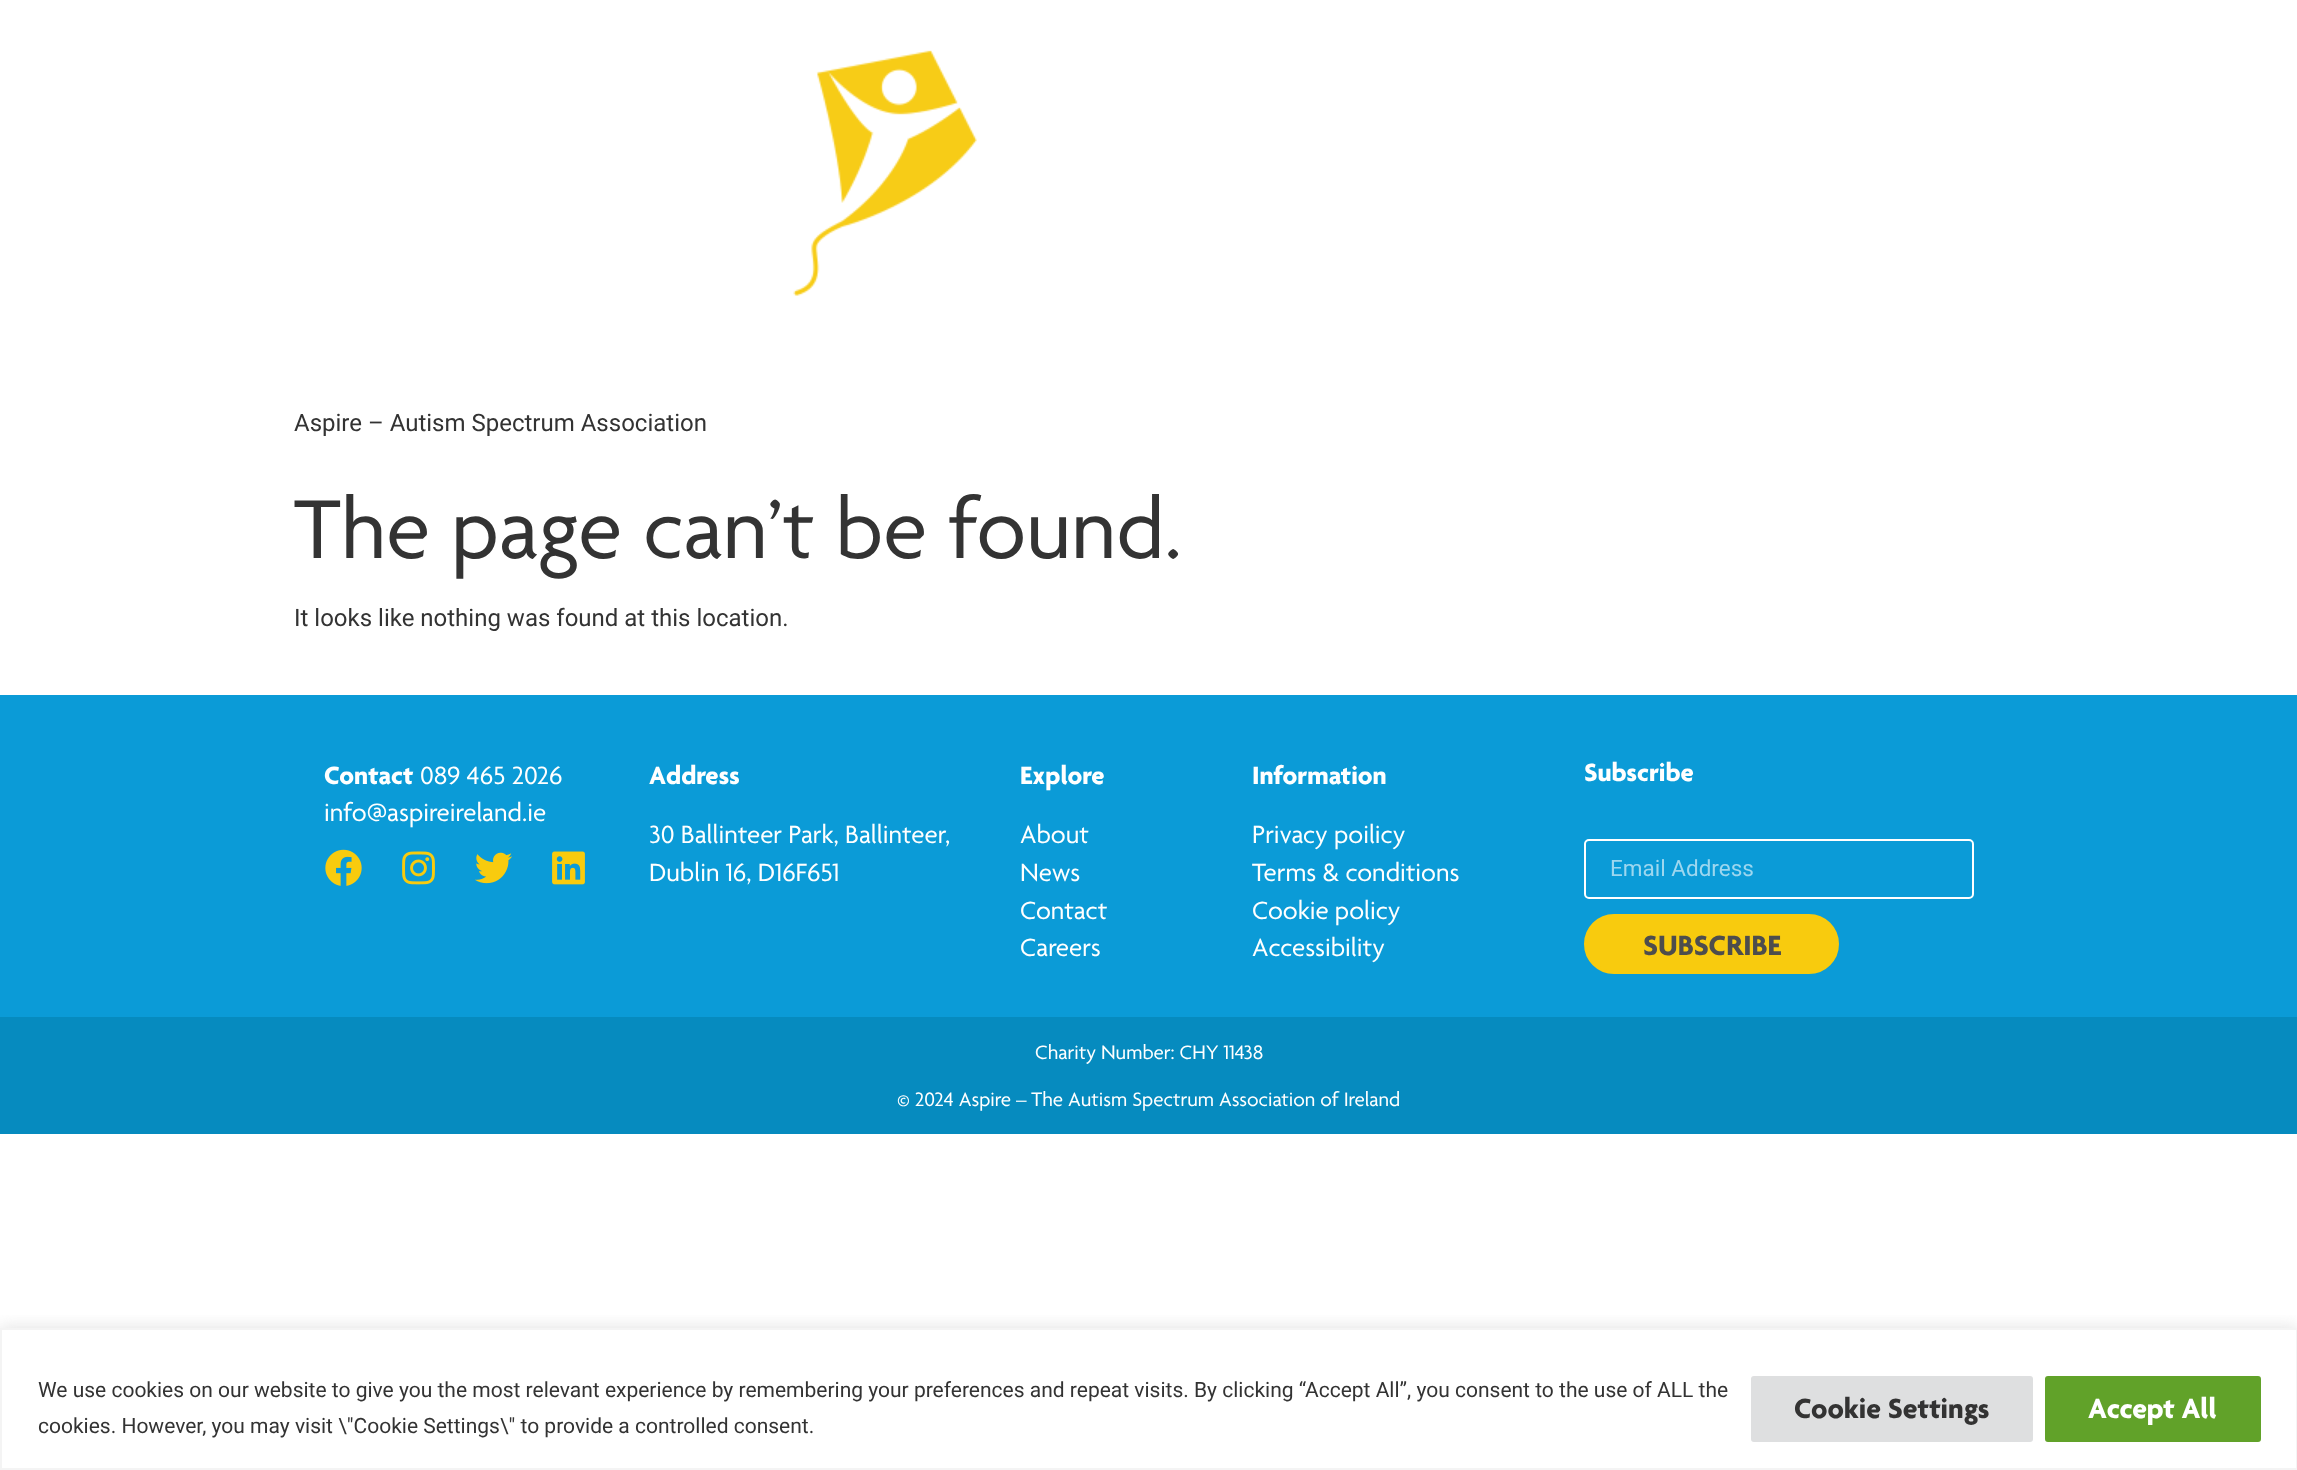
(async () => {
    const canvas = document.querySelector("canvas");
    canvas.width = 2297;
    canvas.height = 1470;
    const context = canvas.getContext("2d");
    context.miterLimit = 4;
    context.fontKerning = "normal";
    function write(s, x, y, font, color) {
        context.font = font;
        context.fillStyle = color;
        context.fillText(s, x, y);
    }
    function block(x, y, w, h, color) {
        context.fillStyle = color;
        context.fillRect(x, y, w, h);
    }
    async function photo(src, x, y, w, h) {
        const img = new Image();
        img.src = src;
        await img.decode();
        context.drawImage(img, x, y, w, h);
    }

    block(0, 0, 2297, 1470, "rgb(255, 255, 255)");
    await photo("media/1.png", 793, 50, 184, 246);
    write("Aspire – Autism Spectrum Association", 294, 431, "24px Roboto", "rgb(51, 51, 51)");
    write("The page can’t be found.", 294, 558, "90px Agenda", "rgb(51, 51, 51)");
    write("It looks like nothing was found at this location.", 294, 626, "24px Roboto", "rgb(51, 51, 51)");
    block(0, 695, 2297, 322, "rgb(11, 155, 215)");
    write("Contact", 324, 784, "bold 27px Agenda", "rgb(255, 255, 255)");
    write("089 465 2026", 420, 784, "27px Agenda", "rgb(255, 255, 255)");
    write("info@aspireireland.ie", 324, 821, "27px Agenda", "rgb(255, 255, 255)");
    await photo("media/2.png", 325, 849, 37, 37);
    await photo("media/3.png", 402, 851, 33, 34);
    await photo("media/4.png", 475, 852, 38, 32);
    await photo("media/5.png", 552, 851, 33, 34);
    write("Address", 649, 784, "bold 27px Agenda", "rgb(255, 255, 255)");
    write("30 Ballinteer Park, Ballinteer,", 649, 843, "27px Agenda", "rgb(255, 255, 255)");
    write("Dublin 16, D16F651", 649, 881, "27px Agenda", "rgb(255, 255, 255)");
    write("Explore", 1020, 784, "bold 27px Agenda", "rgb(255, 255, 255)");
    write("About", 1020, 843, "27px Agenda", "rgb(255, 255, 255)");
    write("News", 1020, 881, "27px Agenda", "rgb(255, 255, 255)");
    write("Contact", 1020, 919, "27px Agenda", "rgb(255, 255, 255)");
    write("Careers", 1020, 956, "27px Agenda", "rgb(255, 255, 255)");
    write("Information", 1252, 784, "bold 27px Agenda", "rgb(255, 255, 255)");
    write("Privacy poilicy", 1252, 843, "27px Agenda", "rgb(255, 255, 255)");
    write("Terms & conditions", 1252, 881, "27px Agenda", "rgb(255, 255, 255)");
    write("Cookie policy", 1252, 919, "27px Agenda", "rgb(255, 255, 255)");
    write("Accessibility", 1252, 956, "27px Agenda", "rgb(255, 255, 255)");
    write("Subscribe", 1584, 781, "bold 27px Agenda", "rgb(255, 255, 255)");
    context.beginPath();
    context.roundRect(1585, 840, 388, 58, 4);
    context.strokeStyle = "rgb(255, 255, 255)";
    context.lineWidth = 2;
    context.stroke();
    write("Email Address", 1610, 876, "22.5px Roboto", "rgb(157, 215, 239)");
    context.fillStyle = "rgb(248, 203, 14)";
    context.beginPath();
    context.roundRect(1585.5, 915.5, 252, 57, 28.5);
    context.fill();
    context.strokeStyle = "rgb(248, 203, 14)";
    context.lineWidth = 3;
    context.stroke();
    write("SUBSCRIBE", 1643, 955, "bold 30px Agenda", "rgb(77, 77, 77)");
    block(0, 1017, 2297, 117, "rgb(6, 139, 191)");
    write("Charity Number: CHY 11438", 1035, 1059, "21px Agenda", "rgb(255, 255, 255)");
    write("© 2024 Aspire – The Autism Spectrum Association of Ireland", 897, 1106, "21px Agenda", "rgb(255, 255, 255)");
    context.save();
    context.beginPath();
    context.rect(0, 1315, 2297, 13);
    context.clip();
    context.fillStyle = "rgba(172, 171, 171, 0.3)";
    context.filter = "blur(7.5px)";
    context.beginPath();
    context.rect(0, 1326, 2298, 143);
    context.fill();
    context.filter = "none";
    context.restore();
    context.strokeStyle = "rgb(244, 244, 244)";
    context.lineWidth = 2;
    context.strokeRect(1, 1329, 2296, 140);
    write("We use cookies on our website to give you the most relevant experience by remembering your preferences and repeat visits. By clicking “Accept All”, you consent to the use of ALL the", 38, 1397, "21px Roboto", "rgb(51, 51, 51)");
    write("cookies. However, you may visit \\\"Cookie Settings\\\" to provide a controlled consent.", 38, 1433, "21px Roboto", "rgb(51, 51, 51)");
    context.fillStyle = "rgb(222, 223, 224)";
    context.beginPath();
    context.roundRect(1752.5, 1377.5, 279, 63, 1.5);
    context.fill();
    context.strokeStyle = "rgb(222, 223, 224)";
    context.lineWidth = 3;
    context.stroke();
    write("Cookie Settings", 1794, 1418, "bold 30px Agenda", "rgb(51, 51, 51)");
    context.fillStyle = "rgb(97, 162, 41)";
    context.beginPath();
    context.roundRect(2046.5, 1377.5, 213, 63, 1.5);
    context.fill();
    context.strokeStyle = "rgb(97, 162, 41)";
    context.stroke();
    write("Accept All", 2088, 1418, "bold 30px Agenda", "rgb(255, 255, 255)");
})();
